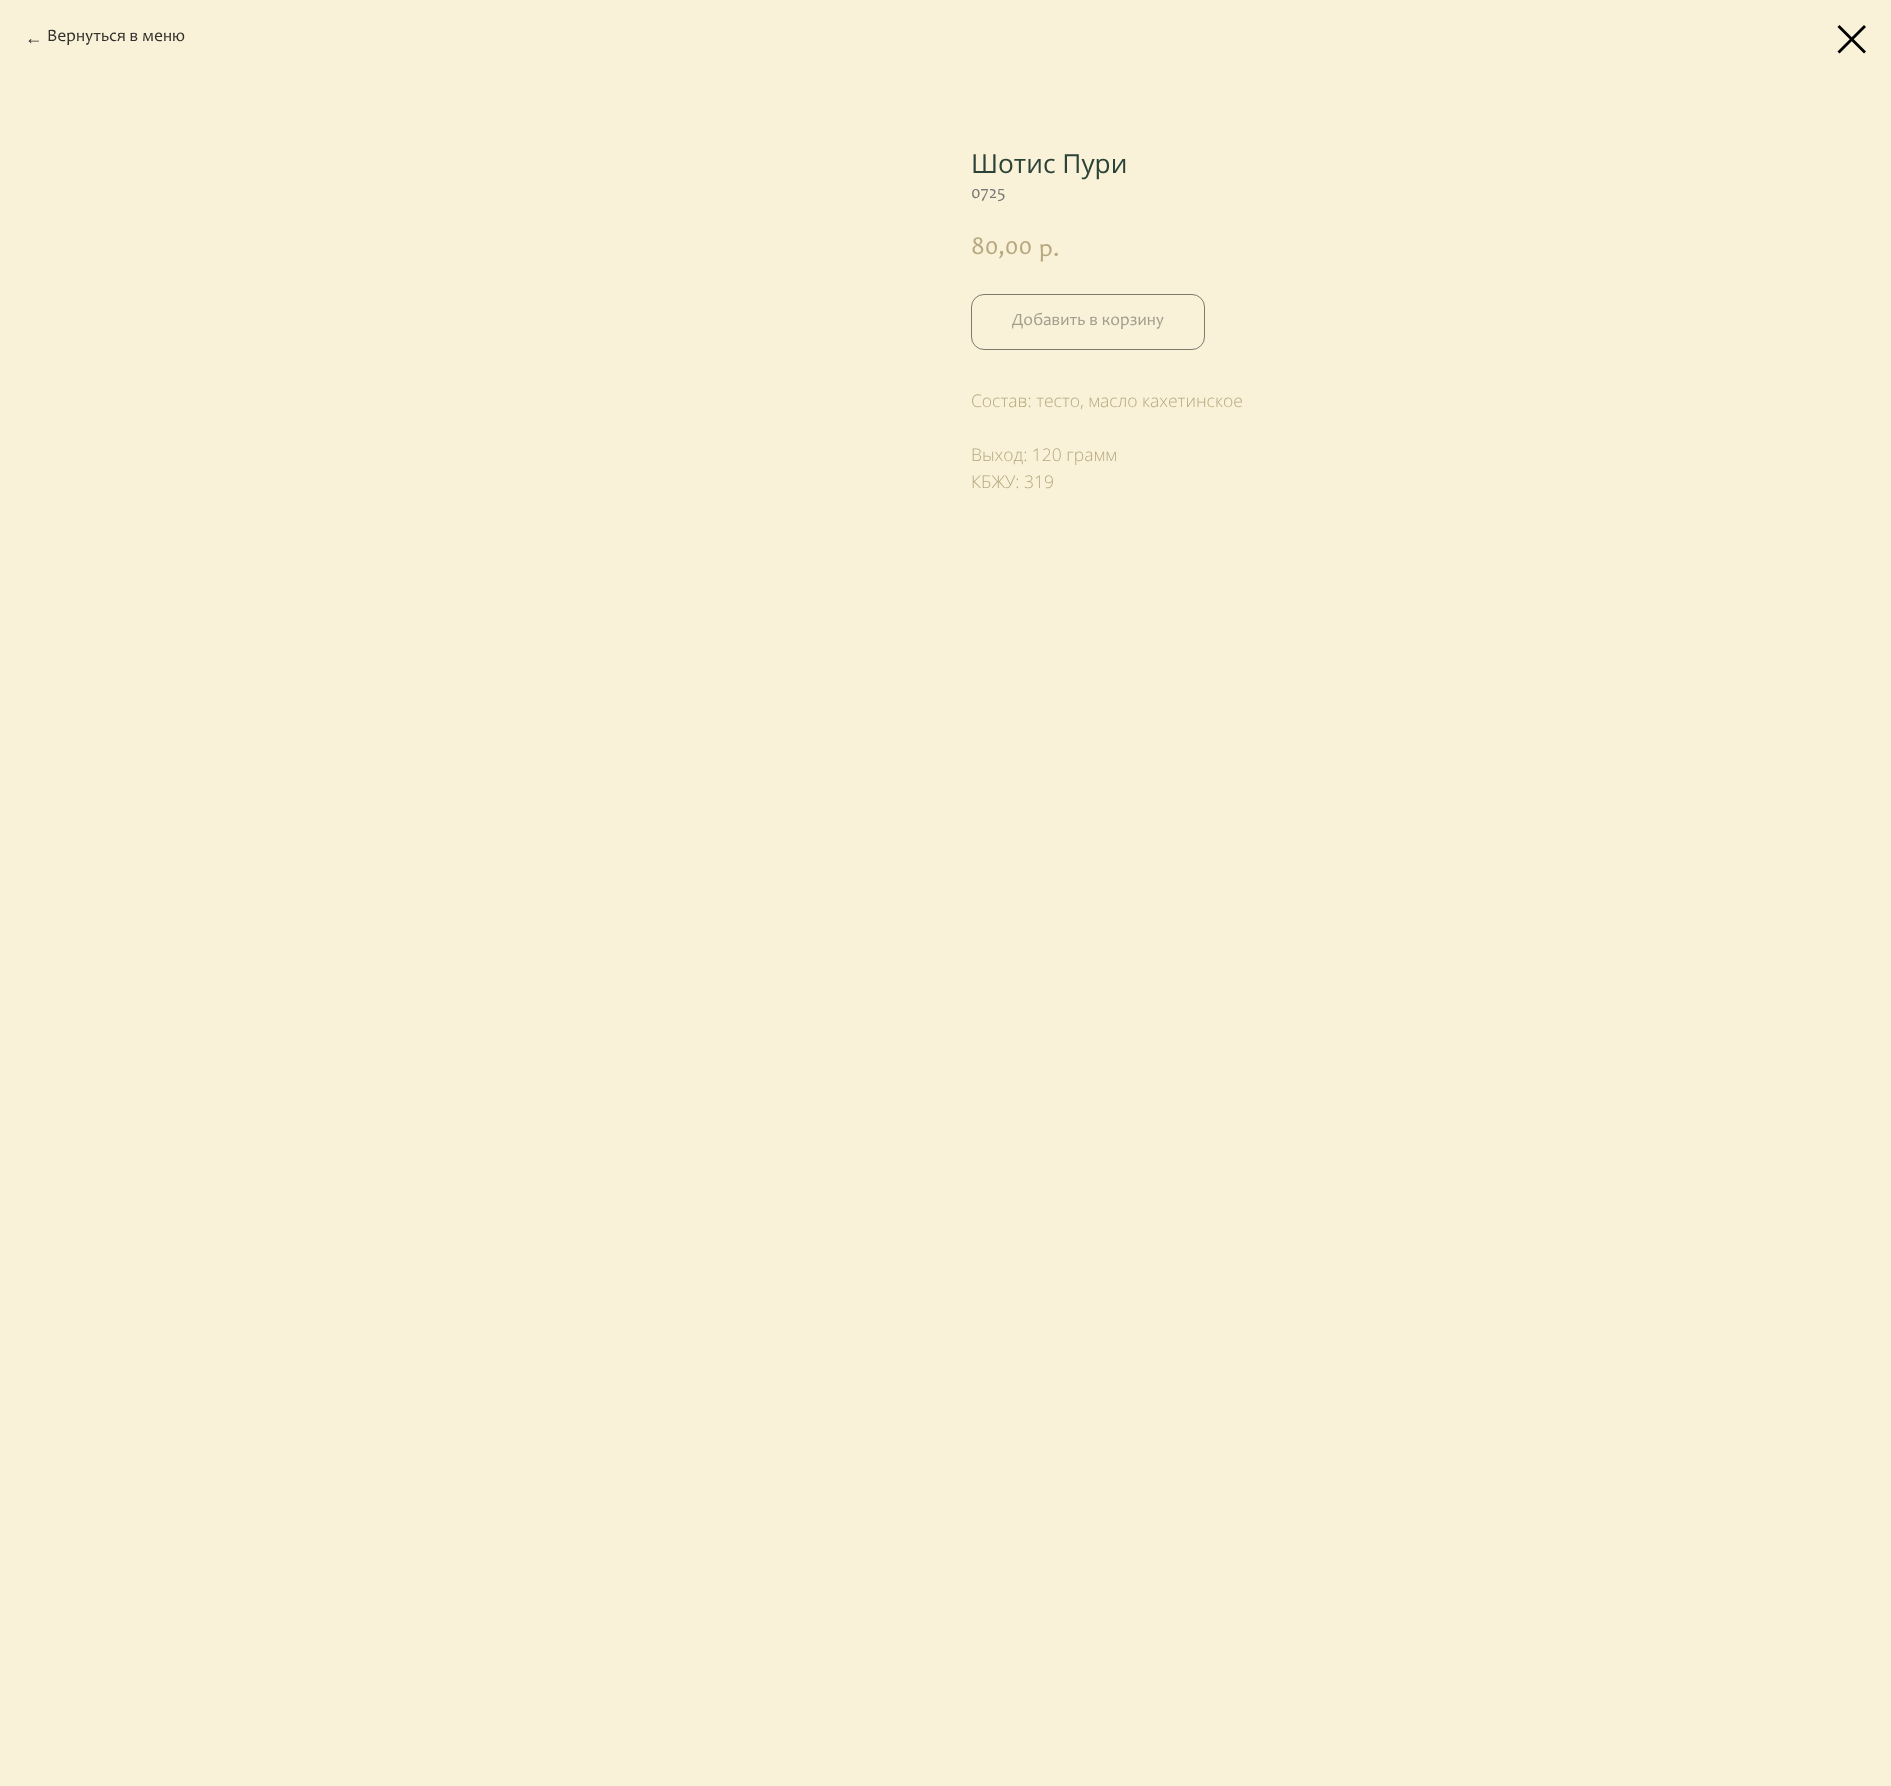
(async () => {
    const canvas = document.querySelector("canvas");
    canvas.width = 1891;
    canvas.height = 1786;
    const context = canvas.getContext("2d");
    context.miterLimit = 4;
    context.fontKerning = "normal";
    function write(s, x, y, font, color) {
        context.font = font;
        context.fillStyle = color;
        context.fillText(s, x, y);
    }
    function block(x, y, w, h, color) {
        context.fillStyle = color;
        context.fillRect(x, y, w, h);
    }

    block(0, 0, 1891, 1786, "rgb(249, 242, 217)");
    write("←", 25, 44, "17.5px Liberation Sans", "rgb(50, 48, 43)");
    write("Вернуться в меню", 47, 41, "17.5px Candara", "rgb(50, 48, 43)");
    context.fillStyle = "rgb(0, 0, 0)";
    context.beginPath();
    context.moveTo(1837.5, 27);
    context.lineTo(1839.5, 25);
    context.lineTo(1866, 51.5);
    context.lineTo(1864, 53.5);
    context.closePath();
    context.fill("evenodd");
    context.beginPath();
    context.moveTo(1864, 25);
    context.lineTo(1866, 27);
    context.lineTo(1839.5, 53.5);
    context.lineTo(1837.5, 51.5);
    context.closePath();
    context.fill("evenodd");
    write("Шотис Пури", 971, 173, "26.25px Open Sans", "rgb(43, 66, 55)");
    write("0725", 971, 198, "17.5px Candara", "rgb(119, 119, 119)");
    write("80,00", 971, 254, "25px Candara", "rgb(183, 168, 127)");
    write("р.", 1039, 256, "25px Candara", "rgb(183, 168, 127)");
    context.beginPath();
    context.roundRect(971.5, 294.5, 233, 55, 12.5);
    context.strokeStyle = "rgb(125, 121, 109)";
    context.stroke();
    write("Добавить в корзину", 1012, 325, "17.5px Candara", "rgb(162, 157, 141)");
    write("Состав: тесто, масло кахетинское", 971, 407, "300 17.5px Open Sans", "rgb(183, 168, 127)");
    write("Выход: 120 грамм", 971, 461, "300 17.5px Open Sans", "rgb(183, 168, 127)");
    write("КБЖУ: 319", 971, 488, "300 17.5px Open Sans", "rgb(183, 168, 127)");
})();
